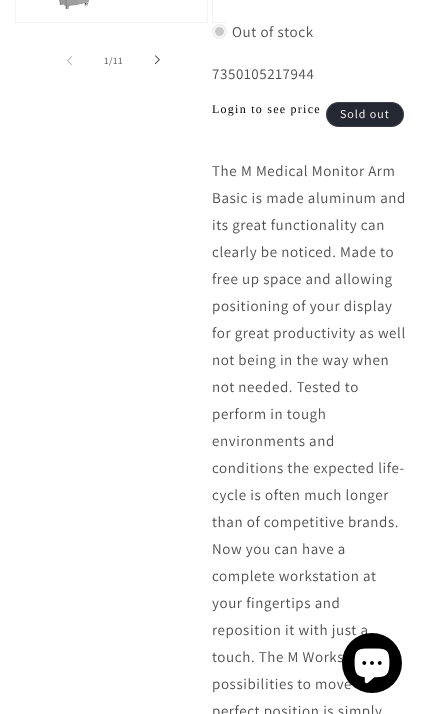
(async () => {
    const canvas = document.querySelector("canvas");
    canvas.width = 424;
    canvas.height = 714;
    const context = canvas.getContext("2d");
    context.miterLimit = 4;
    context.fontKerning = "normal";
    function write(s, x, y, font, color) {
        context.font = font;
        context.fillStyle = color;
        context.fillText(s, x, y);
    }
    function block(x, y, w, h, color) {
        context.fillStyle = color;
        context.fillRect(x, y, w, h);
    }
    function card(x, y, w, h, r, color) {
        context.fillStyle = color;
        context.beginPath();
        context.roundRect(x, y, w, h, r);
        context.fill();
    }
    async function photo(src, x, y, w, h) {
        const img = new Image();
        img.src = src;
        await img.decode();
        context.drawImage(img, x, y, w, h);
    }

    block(0, 0, 424, 714, "rgb(255, 255, 255)");
    context.strokeStyle = "rgb(243, 243, 243)";
    context.strokeRect(15.5, -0.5, 192, 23);
    await photo("media/1.png", 59, 0, 31, 10);
    context.save();
    context.beginPath();
    context.rect(0, 0, 227, 28);
    context.clip();
    context.strokeRect(212.5, -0.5, 192, 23);
    context.restore();
    await photo("media/2.png", 67, 56, 5, 9);
    context.letterSpacing = "0.5px";
    write("1/11", 104, 64, "10px Assistant", "rgb(77, 77, 77)");
    await photo("media/3.png", 154, 55, 6, 10);
    context.fillStyle = "rgb(239, 239, 239)";
    context.beginPath();
    context.arc(219.5, 31.5, 7.5, 0, Math.PI * 2);
    context.fill();
    context.fillStyle = "rgb(200, 200, 200)";
    context.beginPath();
    context.arc(219.5, 31.5, 5, 0, Math.PI * 2);
    context.fill();
    context.strokeStyle = "rgb(255, 255, 255)";
    context.stroke();
    context.letterSpacing = "0.6px";
    write("Out of stock", 232, 37, "15px Assistant", "rgb(77, 77, 77)");
    write("7350105217944", 212, 79, "15px Assistant", "rgb(77, 77, 77)");
    context.letterSpacing = "1.25px";
    write("Login to see price", 212, 113, "12px Liberation Serif", "rgb(0, 0, 0)");
    card(326, 102, 78, 25, 12.5, "rgb(36, 40, 51)");
    context.beginPath();
    context.roundRect(326.5, 102.5, 77, 24, 12);
    context.strokeStyle = "rgba(255, 255, 255, 0.1)";
    context.stroke();
    context.letterSpacing = "1px";
    write("Sold out", 340, 118, "12px Assistant", "rgb(255, 255, 255)");
    context.letterSpacing = "0.6px";
    write("The M Medical Monitor Arm", 212, 176, "15px Assistant", "rgb(77, 77, 77)");
    write("Basic is made aluminum and", 212, 203, "15px Assistant", "rgb(77, 77, 77)");
    write("its great functionality can", 212, 230, "15px Assistant", "rgb(77, 77, 77)");
    write("clearly be noticed. Made to", 212, 257, "15px Assistant", "rgb(77, 77, 77)");
    write("free up space and allowing", 212, 284, "15px Assistant", "rgb(77, 77, 77)");
    write("positioning of your display", 212, 311, "15px Assistant", "rgb(77, 77, 77)");
    write("for great productivity as well", 212, 338, "15px Assistant", "rgb(77, 77, 77)");
    write("not being in the way when", 212, 365, "15px Assistant", "rgb(77, 77, 77)");
    write("not needed. Tested to", 212, 392, "15px Assistant", "rgb(77, 77, 77)");
    write("perform in tough", 212, 419, "15px Assistant", "rgb(77, 77, 77)");
    write("environments and", 212, 446, "15px Assistant", "rgb(77, 77, 77)");
    write("conditions the expected life-", 212, 473, "15px Assistant", "rgb(77, 77, 77)");
    write("cycle is often much longer", 212, 500, "15px Assistant", "rgb(77, 77, 77)");
    write("than of competitive brands.", 212, 527, "15px Assistant", "rgb(77, 77, 77)");
    write("Now you can have a", 212, 554, "15px Assistant", "rgb(77, 77, 77)");
    write("complete workstation at", 212, 581, "15px Assistant", "rgb(77, 77, 77)");
    write("your fingertips and", 212, 608, "15px Assistant", "rgb(77, 77, 77)");
    write("reposition it with just a", 212, 635, "15px Assistant", "rgb(77, 77, 77)");
    write("touch. The M Works", 212, 662, "15px Assistant", "rgb(77, 77, 77)");
    write("possibilities to move", 212, 689, "15px Assistant", "rgb(77, 77, 77)");
    write("perfect position is simply", 212, 716, "15px Assistant", "rgb(77, 77, 77)");
    context.fillStyle = "rgb(0, 0, 0)";
    context.beginPath();
    context.arc(372, 663, 30, 0, Math.PI * 2);
    context.fill();
    await photo("media/4.png", 354, 648, 36, 36);
})();
